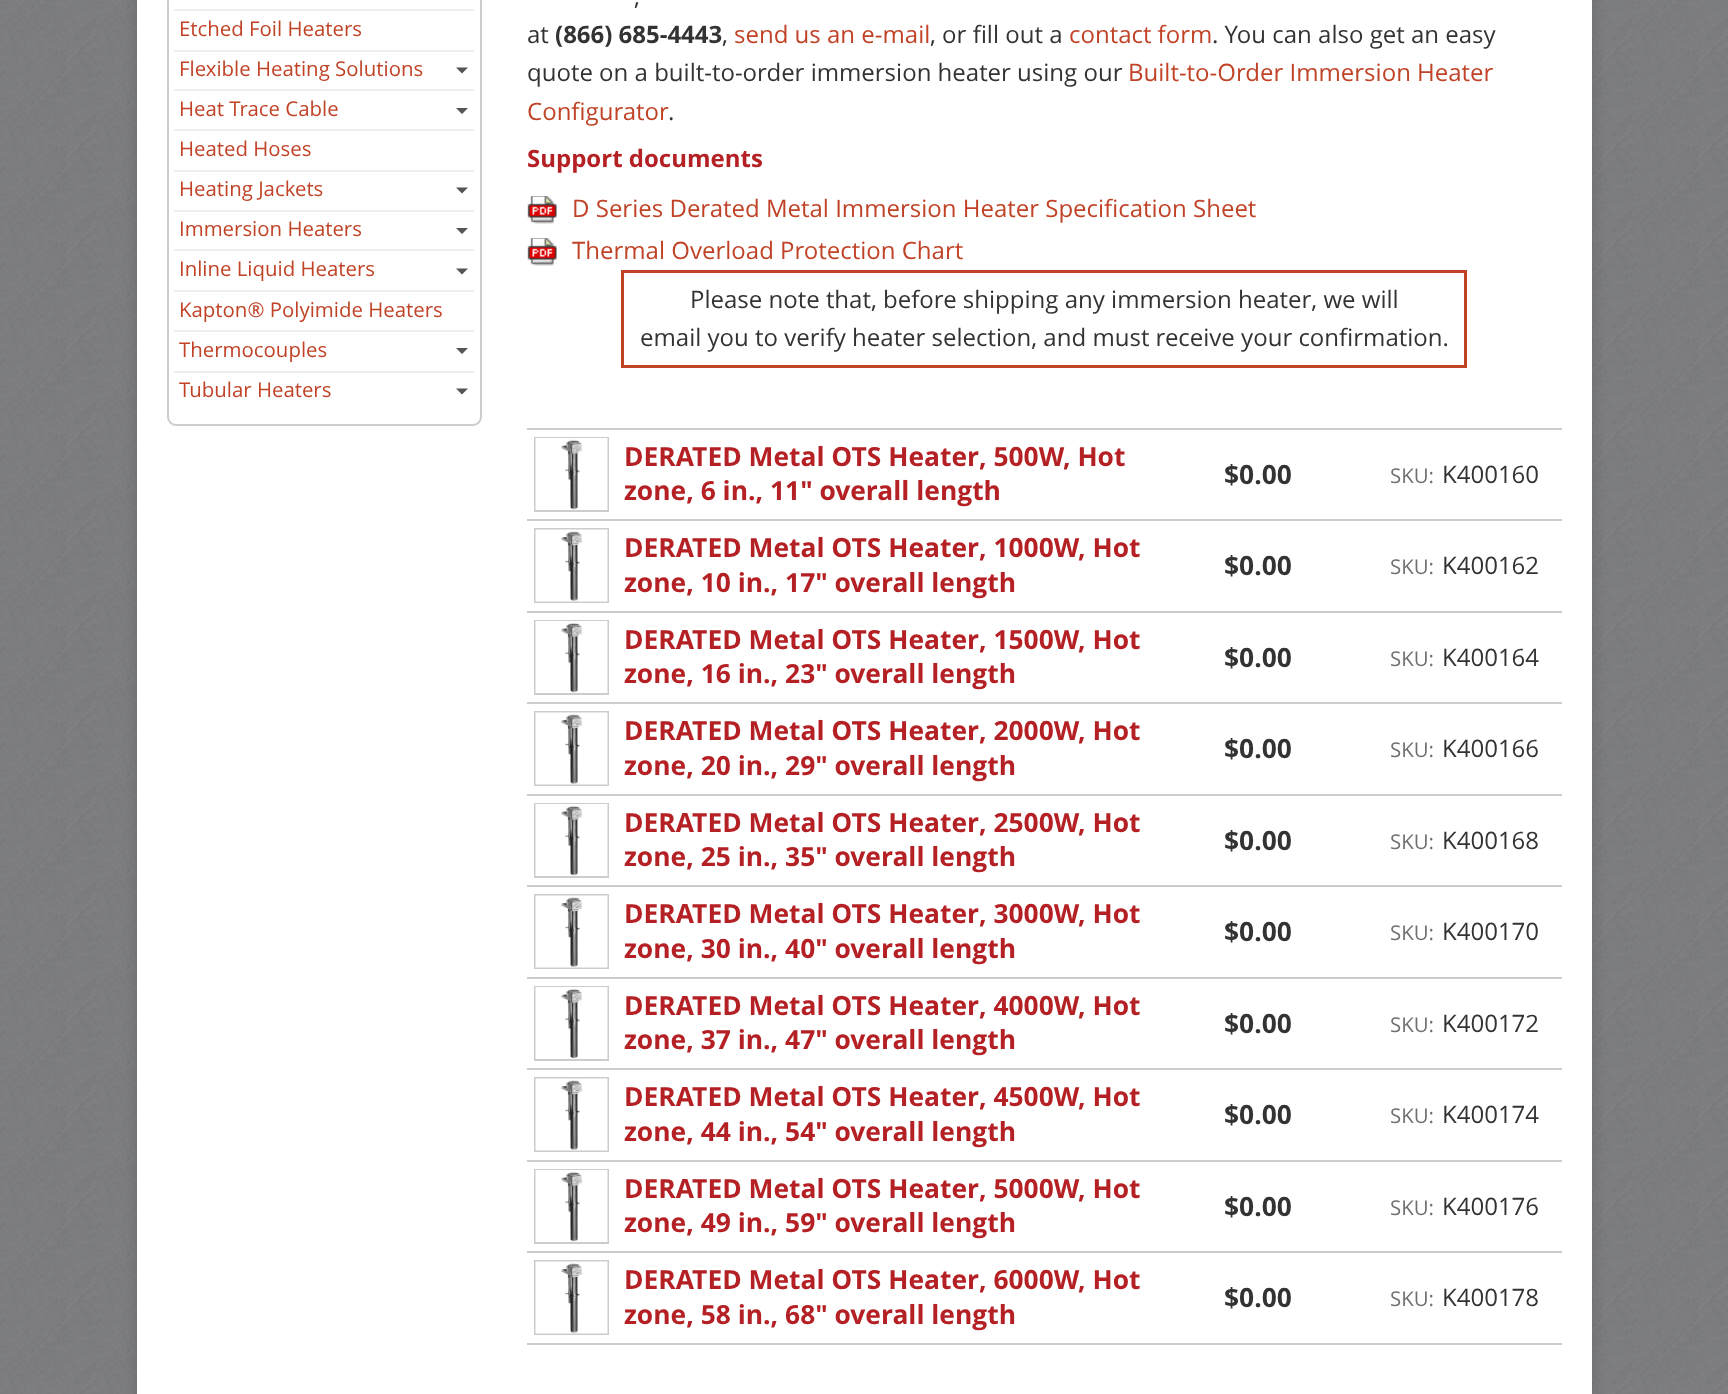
(async () => {
    const canvas = document.querySelector("canvas");
    canvas.width = 1728;
    canvas.height = 1394;
    const context = canvas.getContext("2d");
    context.miterLimit = 4;
    context.fontKerning = "normal";
    function write(s, x, y, font, color) {
        context.font = font;
        context.fillStyle = color;
        context.fillText(s, x, y);
    }
    function block(x, y, w, h, color) {
        context.fillStyle = color;
        context.fillRect(x, y, w, h);
    }
    async function photo(src, x, y, w, h) {
        const img = new Image();
        img.src = src;
        await img.decode();
        context.drawImage(img, x, y, w, h);
    }

    block(0, 0, 1728, 1394, "rgb(255, 255, 255)");
    await photo("media/1.png", 0, 0, 1728, 1394);
    context.fillStyle = "rgba(0, 0, 0, 0.15)";
    context.filter = "blur(7.5px)";
    context.beginPath();
    context.rect(137, -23, 1455, 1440);
    context.fill();
    context.filter = "none";
    block(137, 0, 1455, 1394, "rgb(255, 255, 255)");
    context.beginPath();
    context.roundRect(168, -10, 313, 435, 8);
    context.strokeStyle = "rgb(204, 204, 204)";
    context.lineWidth = 2;
    context.stroke();
    block(174, 9, 300, 2, "rgb(238, 238, 238)");
    write("Etched Foil Heaters", 179, 36, "20.4px Open Sans", "rgb(193, 67, 39)");
    block(174, 50, 300, 2, "rgb(238, 238, 238)");
    write("Flexible Heating Solutions", 179, 76, "20.4px Open Sans", "rgb(193, 67, 39)");
    block(174, 89, 300, 2, "rgb(238, 238, 238)");
    context.fillStyle = "rgb(85, 85, 85)";
    context.beginPath();
    context.moveTo(456, 67.5);
    context.lineTo(468, 67.5);
    context.lineTo(462, 73.5);
    context.closePath();
    context.moveTo(456, 108);
    context.lineTo(468, 108);
    context.lineTo(462, 114);
    context.closePath();
    context.fill();
    write("Heat Trace Cable", 179, 116, "20.4px Open Sans", "rgb(193, 67, 39)");
    block(174, 129, 300, 2, "rgb(238, 238, 238)");
    write("Heated Hoses", 179, 156, "20.4px Open Sans", "rgb(193, 67, 39)");
    block(174, 170, 300, 2, "rgb(238, 238, 238)");
    write("Heating Jackets", 179, 196, "20.4px Open Sans", "rgb(193, 67, 39)");
    block(174, 210, 300, 2, "rgb(238, 238, 238)");
    context.fillStyle = "rgb(85, 85, 85)";
    context.beginPath();
    context.moveTo(456, 187.5);
    context.lineTo(468, 187.5);
    context.lineTo(462, 193.5);
    context.closePath();
    context.moveTo(456, 228);
    context.lineTo(468, 228);
    context.lineTo(462, 234);
    context.closePath();
    context.fill();
    write("Immersion Heaters", 179, 236, "20.4px Open Sans", "rgb(193, 67, 39)");
    block(174, 249, 300, 2, "rgb(238, 238, 238)");
    write("Inline Liquid Heaters", 179, 276, "20.4px Open Sans", "rgb(193, 67, 39)");
    context.fillStyle = "rgb(85, 85, 85)";
    context.beginPath();
    context.moveTo(456, 268.5);
    context.lineTo(468, 268.5);
    context.lineTo(462, 274.5);
    context.closePath();
    context.fill();
    block(174, 290, 300, 2, "rgb(238, 238, 238)");
    write("Kapton® Polyimide Heaters", 179, 317, "20.4px Open Sans", "rgb(193, 67, 39)");
    block(174, 330, 300, 2, "rgb(238, 238, 238)");
    write("Thermocouples", 179, 357, "20.4px Open Sans", "rgb(193, 67, 39)");
    block(174, 371, 300, 2, "rgb(238, 238, 238)");
    context.fillStyle = "rgb(85, 85, 85)";
    context.beginPath();
    context.moveTo(456, 348);
    context.lineTo(468, 348);
    context.lineTo(462, 354);
    context.closePath();
    context.moveTo(456, 388.5);
    context.lineTo(468, 388.5);
    context.lineTo(462, 394.5);
    context.closePath();
    context.fill();
    write("Tubular Heaters", 179, 397, "20.4px Open Sans", "rgb(193, 67, 39)");
    write(",", 634, 5, "24px Open Sans", "rgb(51, 51, 51)");
    write("at", 527, 43, "24px Open Sans", "rgb(51, 51, 51)");
    write("(866) 685-4443", 555, 43, "bold 24px Open Sans", "rgb(51, 51, 51)");
    write(",", 722, 43, "24px Open Sans", "rgb(51, 51, 51)");
    write("send us an e-mail", 734, 43, "24px Open Sans", "rgb(193, 67, 39)");
    write(", or fill out a", 930, 43, "24px Open Sans", "rgb(51, 51, 51)");
    write("contact form", 1069, 43, "24px Open Sans", "rgb(193, 67, 39)");
    write(". You can also get an easy", 1212, 43, "24px Open Sans", "rgb(51, 51, 51)");
    write("quote on a built-to-order immersion heater using our", 527, 81, "24px Open Sans", "rgb(51, 51, 51)");
    write("Built-to-Order Immersion Heater", 1128, 81, "24px Open Sans", "rgb(193, 67, 39)");
    write("Configurator", 527, 120, "24px Open Sans", "rgb(193, 67, 39)");
    write(".", 668, 120, "24px Open Sans", "rgb(51, 51, 51)");
    write("Support documents", 527, 167, "bold 24px Open Sans", "rgb(180, 32, 36)");
    await photo("media/2.png", 527, 196, 30, 28);
    write("D Series Derated Metal Immersion Heater Specification Sheet", 572, 217, "24px Open Sans", "rgb(193, 67, 39)");
    await photo("media/2.png", 527, 238, 30, 28);
    write("Thermal Overload Protection Chart", 572, 259, "24px Open Sans", "rgb(193, 67, 39)");
    context.strokeStyle = "rgb(193, 67, 39)";
    context.lineWidth = 3;
    context.strokeRect(622.5, 271.5, 843, 95);
    write("Please note that, before shipping any immersion heater, we will", 690, 308, "24px Open Sans", "rgb(51, 51, 51)");
    write("email you to verify heater selection, and must receive your confirmation.", 640, 346, "24px Open Sans", "rgb(51, 51, 51)");
    block(527, 1343, 1035, 2, "rgb(204, 204, 204)");
    block(527, 428, 1035, 2, "rgb(204, 204, 204)");
    context.strokeStyle = "rgb(204, 204, 204)";
    context.lineWidth = 2;
    context.strokeRect(535, 438, 73, 73);
    await photo("media/3.png", 535, 438, 73, 72);
    write("DERATED Metal OTS Heater, 500W, Hot", 624, 466, "bold 26.4px Open Sans", "rgb(180, 32, 36)");
    write("zone, 6 in., 11\" overall length", 624, 500, "bold 26.4px Open Sans", "rgb(180, 32, 36)");
    write("$0.00", 1224, 484, "bold 26.4px Open Sans", "rgb(51, 51, 51)");
    write("SKU:", 1390, 483, "20.4px Open Sans", "rgb(112, 112, 112)");
    write("K400160", 1442, 483, "24px Open Sans", "rgb(51, 51, 51)");
    block(527, 519, 1035, 2, "rgb(204, 204, 204)");
    context.strokeRect(535, 529, 73, 73);
    await photo("media/4.png", 535, 529, 73, 73);
    write("DERATED Metal OTS Heater, 1000W, Hot", 624, 557, "bold 26.4px Open Sans", "rgb(180, 32, 36)");
    write("zone, 10 in., 17\" overall length", 624, 592, "bold 26.4px Open Sans", "rgb(180, 32, 36)");
    write("$0.00", 1224, 575, "bold 26.4px Open Sans", "rgb(51, 51, 51)");
    write("SKU:", 1390, 574, "20.4px Open Sans", "rgb(112, 112, 112)");
    write("K400162", 1442, 574, "24px Open Sans", "rgb(51, 51, 51)");
    block(527, 611, 1035, 2, "rgb(204, 204, 204)");
    context.strokeRect(535, 621, 73, 73);
    await photo("media/3.png", 535, 621, 73, 72);
    write("DERATED Metal OTS Heater, 1500W, Hot", 624, 649, "bold 26.4px Open Sans", "rgb(180, 32, 36)");
    write("zone, 16 in., 23\" overall length", 624, 683, "bold 26.4px Open Sans", "rgb(180, 32, 36)");
    write("$0.00", 1224, 667, "bold 26.4px Open Sans", "rgb(51, 51, 51)");
    write("SKU:", 1390, 666, "20.4px Open Sans", "rgb(112, 112, 112)");
    write("K400164", 1442, 666, "24px Open Sans", "rgb(51, 51, 51)");
    block(527, 702, 1035, 2, "rgb(204, 204, 204)");
    context.strokeRect(535, 712, 73, 73);
    await photo("media/5.png", 535, 712, 73, 73);
    write("DERATED Metal OTS Heater, 2000W, Hot", 624, 740, "bold 26.4px Open Sans", "rgb(180, 32, 36)");
    write("zone, 20 in., 29\" overall length", 624, 775, "bold 26.4px Open Sans", "rgb(180, 32, 36)");
    write("$0.00", 1224, 758, "bold 26.4px Open Sans", "rgb(51, 51, 51)");
    write("SKU:", 1390, 757, "20.4px Open Sans", "rgb(112, 112, 112)");
    write("K400166", 1442, 757, "24px Open Sans", "rgb(51, 51, 51)");
    block(527, 794, 1035, 2, "rgb(204, 204, 204)");
    context.strokeRect(535, 804, 73, 73);
    await photo("media/3.png", 535, 804, 73, 72);
    write("DERATED Metal OTS Heater, 2500W, Hot", 624, 832, "bold 26.4px Open Sans", "rgb(180, 32, 36)");
    write("zone, 25 in., 35\" overall length", 624, 866, "bold 26.4px Open Sans", "rgb(180, 32, 36)");
    write("$0.00", 1224, 850, "bold 26.4px Open Sans", "rgb(51, 51, 51)");
    write("SKU:", 1390, 849, "20.4px Open Sans", "rgb(112, 112, 112)");
    write("K400168", 1442, 849, "24px Open Sans", "rgb(51, 51, 51)");
    block(527, 885, 1035, 2, "rgb(204, 204, 204)");
    context.strokeRect(535, 895, 73, 73);
    await photo("media/6.png", 535, 895, 73, 73);
    write("DERATED Metal OTS Heater, 3000W, Hot", 624, 923, "bold 26.4px Open Sans", "rgb(180, 32, 36)");
    write("zone, 30 in., 40\" overall length", 624, 958, "bold 26.4px Open Sans", "rgb(180, 32, 36)");
    write("$0.00", 1224, 941, "bold 26.4px Open Sans", "rgb(51, 51, 51)");
    write("SKU:", 1390, 940, "20.4px Open Sans", "rgb(112, 112, 112)");
    write("K400170", 1442, 940, "24px Open Sans", "rgb(51, 51, 51)");
    block(527, 977, 1035, 2, "rgb(204, 204, 204)");
    context.strokeRect(535, 987, 73, 73);
    await photo("media/3.png", 535, 987, 73, 72);
    write("DERATED Metal OTS Heater, 4000W, Hot", 624, 1015, "bold 26.4px Open Sans", "rgb(180, 32, 36)");
    write("zone, 37 in., 47\" overall length", 624, 1049, "bold 26.4px Open Sans", "rgb(180, 32, 36)");
    write("$0.00", 1224, 1033, "bold 26.4px Open Sans", "rgb(51, 51, 51)");
    write("SKU:", 1390, 1032, "20.4px Open Sans", "rgb(112, 112, 112)");
    write("K400172", 1442, 1032, "24px Open Sans", "rgb(51, 51, 51)");
    block(527, 1068, 1035, 2, "rgb(204, 204, 204)");
    context.strokeRect(535, 1078, 73, 73);
    await photo("media/5.png", 535, 1078, 73, 73);
    write("DERATED Metal OTS Heater, 4500W, Hot", 624, 1106, "bold 26.4px Open Sans", "rgb(180, 32, 36)");
    write("zone, 44 in., 54\" overall length", 624, 1141, "bold 26.4px Open Sans", "rgb(180, 32, 36)");
    write("$0.00", 1224, 1124, "bold 26.4px Open Sans", "rgb(51, 51, 51)");
    write("SKU:", 1390, 1123, "20.4px Open Sans", "rgb(112, 112, 112)");
    write("K400174", 1442, 1123, "24px Open Sans", "rgb(51, 51, 51)");
    block(527, 1160, 1035, 2, "rgb(204, 204, 204)");
    context.strokeRect(535, 1170, 73, 73);
    await photo("media/3.png", 535, 1170, 73, 72);
    write("DERATED Metal OTS Heater, 5000W, Hot", 624, 1198, "bold 26.4px Open Sans", "rgb(180, 32, 36)");
    write("zone, 49 in., 59\" overall length", 624, 1232, "bold 26.4px Open Sans", "rgb(180, 32, 36)");
    write("$0.00", 1224, 1216, "bold 26.4px Open Sans", "rgb(51, 51, 51)");
    write("SKU:", 1390, 1215, "20.4px Open Sans", "rgb(112, 112, 112)");
    write("K400176", 1442, 1215, "24px Open Sans", "rgb(51, 51, 51)");
    block(527, 1251, 1035, 2, "rgb(204, 204, 204)");
    context.strokeRect(535, 1261, 73, 73);
    await photo("media/5.png", 535, 1261, 73, 73);
    write("DERATED Metal OTS Heater, 6000W, Hot", 624, 1289, "bold 26.4px Open Sans", "rgb(180, 32, 36)");
    write("zone, 58 in., 68\" overall length", 624, 1324, "bold 26.4px Open Sans", "rgb(180, 32, 36)");
    write("$0.00", 1224, 1307, "bold 26.4px Open Sans", "rgb(51, 51, 51)");
    write("SKU:", 1390, 1306, "20.4px Open Sans", "rgb(112, 112, 112)");
    write("K400178", 1442, 1306, "24px Open Sans", "rgb(51, 51, 51)");
})();
